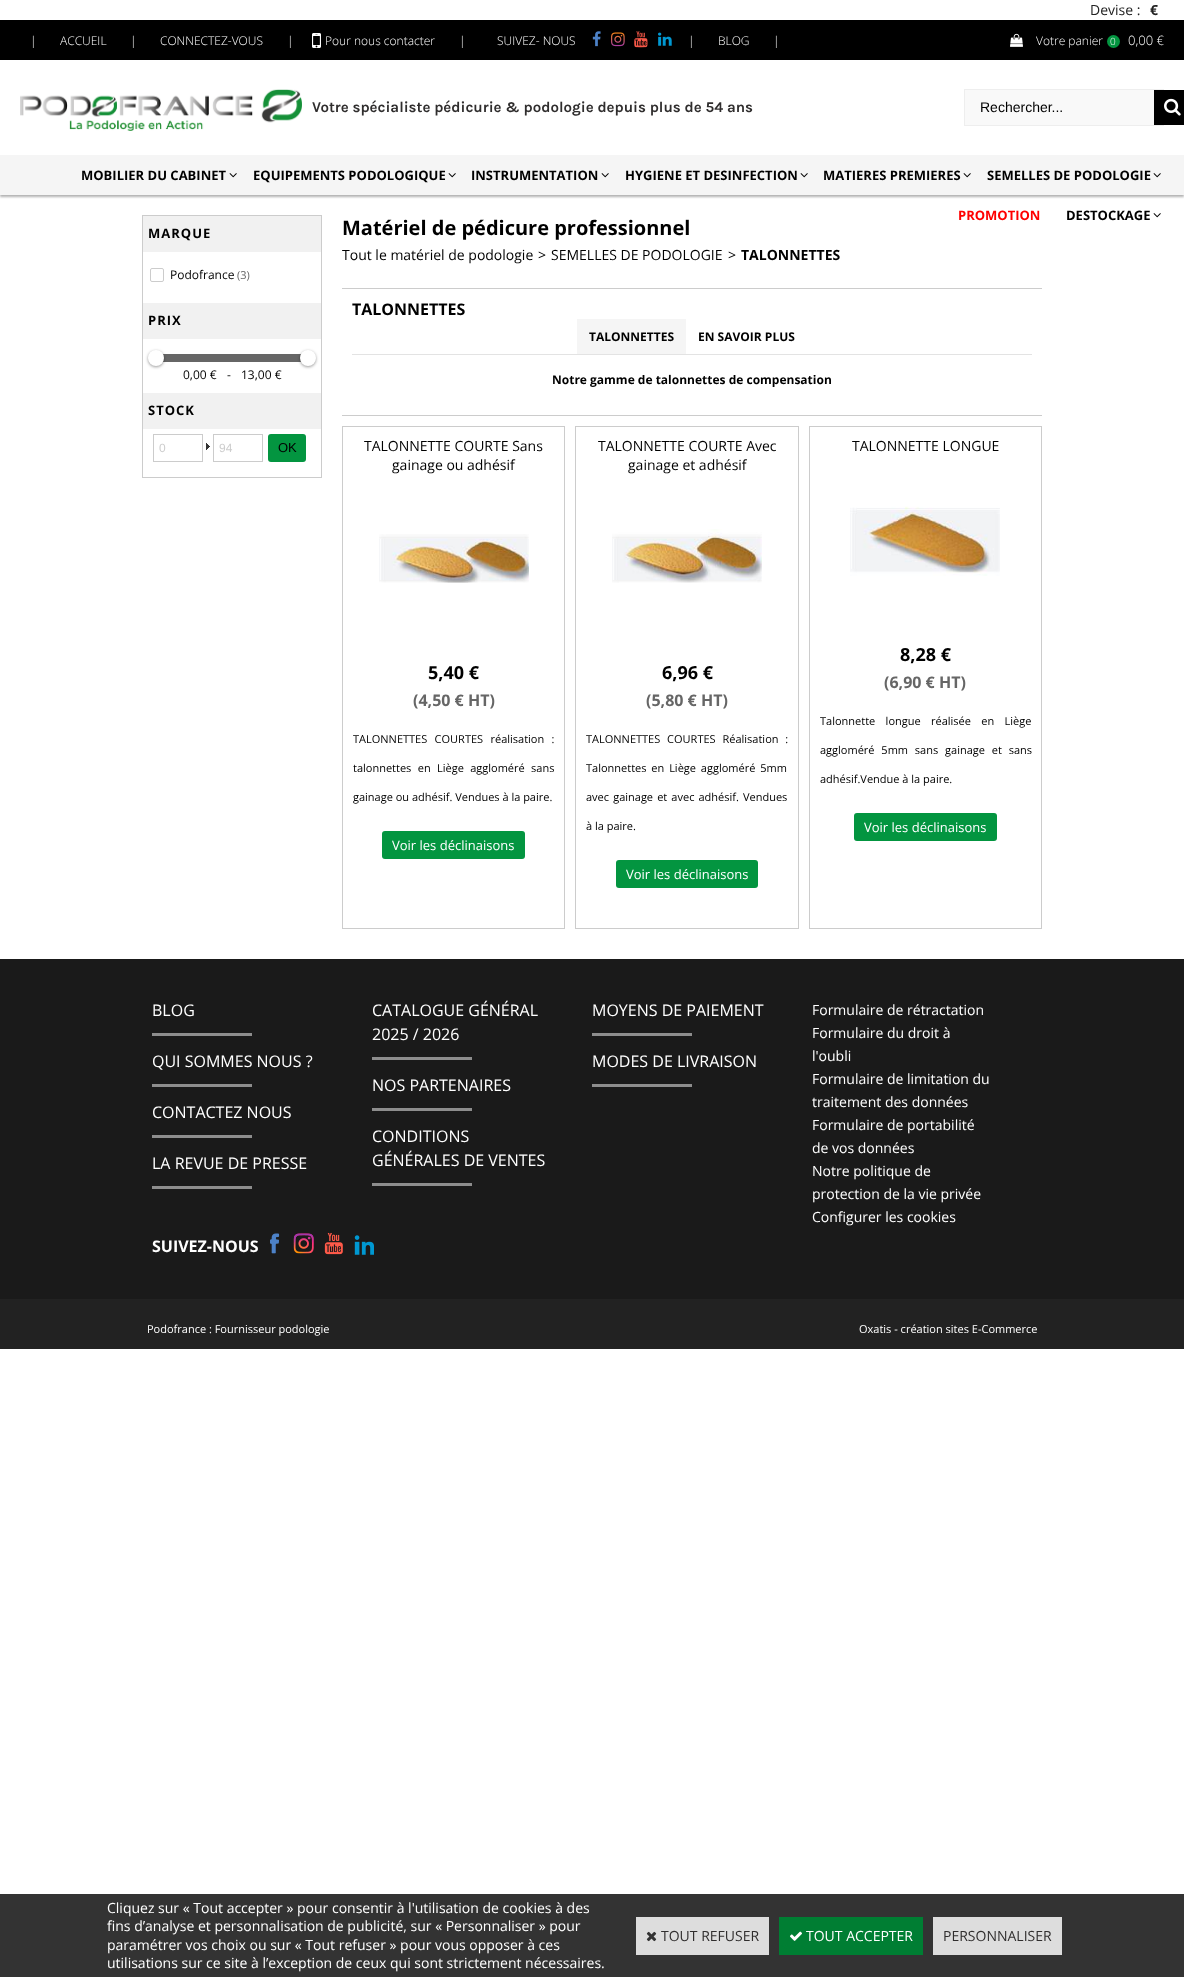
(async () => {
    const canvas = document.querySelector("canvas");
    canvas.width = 1184;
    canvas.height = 1977;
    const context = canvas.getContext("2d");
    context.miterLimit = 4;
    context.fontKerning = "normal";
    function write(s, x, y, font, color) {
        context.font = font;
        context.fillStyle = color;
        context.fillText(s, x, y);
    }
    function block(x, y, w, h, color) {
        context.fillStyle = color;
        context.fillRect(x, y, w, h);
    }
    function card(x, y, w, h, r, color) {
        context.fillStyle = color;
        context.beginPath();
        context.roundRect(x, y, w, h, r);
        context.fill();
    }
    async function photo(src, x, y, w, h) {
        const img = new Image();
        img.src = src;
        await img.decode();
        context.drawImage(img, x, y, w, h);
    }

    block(0, 0, 1184, 1977, "rgb(255, 255, 255)");
    write("Devise :", 1090, 15, "14px Open Sans", "rgb(34, 34, 34)");
    write("€", 1150, 15, "bold 14px Open Sans", "rgb(34, 34, 34)");
    block(0, 20, 1184, 40, "rgb(0, 0, 0)");
    write("|", 30, 45, "300 12px Open Sans", "rgb(255, 255, 255)");
    write("ACCUEIL", 60, 45, "300 12px Open Sans", "rgb(255, 255, 255)");
    write("|", 130, 45, "300 12px Open Sans", "rgb(255, 255, 255)");
    write("CONNECTEZ-VOUS", 160, 45, "300 12px Open Sans", "rgb(255, 255, 255)");
    write("|", 287, 45, "300 12px Open Sans", "rgb(255, 255, 255)");
    await photo("media/1.png", 312, 33, 9, 15);
    write("Pour nous contacter", 325, 45, "300 12px Open Sans", "rgb(255, 255, 255)");
    write("|", 459, 45, "300 12px Open Sans", "rgb(255, 255, 255)");
    write("SUIVEZ- NOUS", 497, 45, "300 12px Open Sans", "rgb(255, 255, 255)");
    await photo("media/2.png", 592, 31, 9, 16);
    await photo("media/3.png", 611, 32, 14, 15);
    await photo("media/4.png", 634, 31, 14, 17);
    await photo("media/5.png", 658, 32, 14, 14);
    write("|", 688, 45, "300 12px Open Sans", "rgb(255, 255, 255)");
    write("BLOG", 718, 45, "300 12px Open Sans", "rgb(255, 255, 255)");
    write("|", 773, 45, "300 12px Open Sans", "rgb(255, 255, 255)");
    await photo("media/6.png", 1010, 33, 13, 14);
    write("Votre panier", 1036, 45, "300 12px Open Sans", "rgb(255, 255, 255)");
    context.fillStyle = "rgb(3, 149, 64)";
    context.beginPath();
    context.arc(1113.5, 41.5, 6.5, 0, Math.PI * 2);
    context.fill();
    write("0", 1110, 45, "300 10px Open Sans", "rgb(255, 255, 255)");
    write("0,00 €", 1128, 45, "300 13px Open Sans", "rgb(255, 255, 255)");
    await photo("media/7.png", 20, 89, 282, 42);
    write("Votre spécialiste pédicurie & podologie depuis plus de 54 ans", 312, 112, "bold 15px Karla", "rgb(48, 46, 46)");
    block(965, 90, 189, 35, "rgb(249, 249, 249)");
    context.strokeStyle = "rgb(238, 238, 238)";
    context.strokeRect(964.5, 89.5, 199, 36);
    write("Rechercher...", 980, 112, "14px Liberation Sans", "rgb(0, 0, 0)");
    block(1154, 90, 30, 35, "rgb(0, 0, 0)");
    await photo("media/8.png", 1164, 98, 17, 18);
    context.fillStyle = "rgba(0, 0, 0, 0.3)";
    context.filter = "blur(1px)";
    context.beginPath();
    context.rect(0, 157, 1184, 40);
    context.fill();
    context.filter = "none";
    block(0, 155, 1184, 40, "rgb(245, 245, 245)");
    write("MOBILIER DU CABINET", 81, 180, "bold 13px Open Sans", "rgb(0, 0, 0)");
    await photo("media/9.png", 229, 173, 8, 5);
    write("EQUIPEMENTS PODOLOGIQUE", 253, 180, "bold 13px Open Sans", "rgb(0, 0, 0)");
    await photo("media/9.png", 448, 173, 8, 5);
    write("INSTRUMENTATION", 471, 180, "bold 13px Open Sans", "rgb(0, 0, 0)");
    await photo("media/9.png", 601, 173, 8, 5);
    write("HYGIENE ET DESINFECTION", 625, 180, "bold 13px Open Sans", "rgb(0, 0, 0)");
    await photo("media/9.png", 800, 173, 8, 5);
    write("MATIERES PREMIERES", 823, 180, "bold 13px Open Sans", "rgb(0, 0, 0)");
    await photo("media/9.png", 963, 173, 8, 5);
    write("SEMELLES DE PODOLOGIE", 987, 180, "bold 13px Open Sans", "rgb(0, 0, 0)");
    await photo("media/9.png", 1153, 173, 8, 5);
    write("PROMOTION", 958, 220, "bold 13px Open Sans", "rgb(255, 0, 0)");
    write("DESTOCKAGE", 1066, 220, "bold 13px Open Sans", "rgb(0, 0, 0)");
    await photo("media/10.png", 1153, 213, 8, 5);
    context.strokeStyle = "rgb(204, 204, 204)";
    context.strokeRect(142.5, 215.5, 179, 262);
    block(143, 216, 178, 36, "rgb(241, 241, 241)");
    context.letterSpacing = "1px";
    write("MARQUE", 148, 238, "bold 13px Open Sans", "rgb(0, 0, 0)");
    context.beginPath();
    context.roundRect(150.5, 268.5, 13, 13, 1.5);
    context.stroke();
    context.letterSpacing = "0px";
    write("Podofrance", 170, 279, "12px Open Sans", "rgb(0, 0, 0)");
    write("(3)", 237, 279, "11px Open Sans", "rgb(102, 102, 102)");
    block(143, 303, 178, 36, "rgb(241, 241, 241)");
    context.letterSpacing = "1px";
    write("PRIX", 148, 325, "bold 13px Open Sans", "rgb(0, 0, 0)");
    block(156, 354, 152, 8, "rgb(102, 102, 102)");
    context.fillStyle = "rgba(0, 0, 0, 0.4)";
    context.filter = "blur(1.5px)";
    context.beginPath();
    context.roundRect(148, 351, 16, 16, 8);
    context.fill();
    context.filter = "none";
    context.fillStyle = "rgb(255, 255, 255)";
    context.beginPath();
    context.arc(156, 358, 8, 0, Math.PI * 2);
    context.fill();
    context.fillStyle = "rgba(0, 0, 0, 0.4)";
    context.filter = "blur(1.5px)";
    context.beginPath();
    context.roundRect(300, 351, 16, 16, 8);
    context.fill();
    context.filter = "none";
    context.fillStyle = "rgb(255, 255, 255)";
    context.beginPath();
    context.arc(308, 358, 8, 0, Math.PI * 2);
    context.fill();
    context.letterSpacing = "0px";
    write("0,00 €", 183, 379, "12px Open Sans", "rgb(0, 0, 0)");
    write("-", 227, 379, "12px Open Sans", "rgb(0, 0, 0)");
    write("13,00 €", 241, 379, "12px Open Sans", "rgb(0, 0, 0)");
    block(143, 393, 178, 36, "rgb(241, 241, 241)");
    context.letterSpacing = "1px";
    write("STOCK", 148, 415, "bold 13px Open Sans", "rgb(0, 0, 0)");
    context.strokeRect(153.5, 434.5, 49, 27);
    context.letterSpacing = "0px";
    write("0", 159, 452, "12px Liberation Sans", "rgb(205, 205, 205)");
    await photo("media/11.png", 206, 443, 4, 7);
    context.strokeRect(213.5, 434.5, 49, 27);
    write("94", 219, 452, "12px Liberation Sans", "rgb(205, 205, 205)");
    card(268, 434, 38, 28, 3, "rgb(3, 149, 64)");
    write("OK", 278, 452, "13px Liberation Sans", "rgb(0, 0, 0)");
    write("Matériel de pédicure professionnel", 342, 235, "bold 20px Open Sans", "rgb(0, 0, 0)");
    write("Tout le matériel de podologie", 342, 260, "14px Open Sans", "rgb(0, 0, 0)");
    write(">", 538, 260, "14px Open Sans", "rgb(0, 0, 0)");
    write("SEMELLES DE PODOLOGIE", 551, 260, "14px Open Sans", "rgb(0, 0, 0)");
    write(">", 728, 260, "14px Open Sans", "rgb(0, 0, 0)");
    write("TALONNETTES", 741, 260, "bold 14px Open Sans", "rgb(0, 0, 0)");
    block(342, 288, 700, 1, "rgb(204, 204, 204)");
    block(342, 415, 700, 1, "rgb(204, 204, 204)");
    write("TALONNETTES", 352, 315, "bold 16px Open Sans", "rgb(0, 0, 0)");
    block(577, 319, 109, 35, "rgb(245, 245, 245)");
    write("TALONNETTES", 589, 341, "bold 12px Open Sans", "rgb(0, 0, 0)");
    write("EN SAVOIR PLUS", 698, 341, "bold 12px Open Sans", "rgb(0, 0, 0)");
    block(352, 354, 680, 1, "rgb(227, 227, 227)");
    write("Notre gamme de talonnettes de compensation", 552, 384, "bold 12px Open Sans", "rgb(0, 0, 0)");
    context.strokeRect(342.5, 426.5, 222, 502);
    write("TALONNETTE COURTE Sans", 364, 451, "14px Open Sans", "rgb(0, 0, 0)");
    write("gainage ou adhésif", 392, 470, "14px Open Sans", "rgb(0, 0, 0)");
    await photo("media/12.png", 379, 534, 150, 49);
    write("5,40 €", 428, 679, "bold 18px Open Sans", "rgb(0, 0, 0)");
    write("(4,50 € HT)", 413, 706, "bold 16px Open Sans", "rgb(102, 102, 102)");
    context.wordSpacing = "4.5px";
    write("TALONNETTES COURTES réalisation :", 353, 743, "11px Open Sans", "rgb(0, 0, 0)");
    context.wordSpacing = "3.5px";
    write("talonnettes en Liège aggloméré sans", 353, 772, "11px Open Sans", "rgb(0, 0, 0)");
    context.wordSpacing = "0px";
    write("gainage ou adhésif. Vendues à la paire.", 353, 801, "11px Open Sans", "rgb(0, 0, 0)");
    card(382, 831, 143, 28, 3, "rgb(3, 149, 64)");
    write("Voir les déclinaisons", 392, 850, "13px Open Sans", "rgb(255, 255, 255)");
    context.strokeRect(575.5, 426.5, 223, 502);
    write("TALONNETTE COURTE Avec", 598, 451, "14px Open Sans", "rgb(0, 0, 0)");
    write("gainage et adhésif", 628, 470, "14px Open Sans", "rgb(0, 0, 0)");
    await photo("media/13.png", 612, 529, 150, 54);
    write("6,96 €", 662, 679, "bold 18px Open Sans", "rgb(0, 0, 0)");
    write("(5,80 € HT)", 646, 706, "bold 16px Open Sans", "rgb(102, 102, 102)");
    context.wordSpacing = "4px";
    write("TALONNETTES COURTES Réalisation :", 586, 743, "11px Open Sans", "rgb(0, 0, 0)");
    context.wordSpacing = "2px";
    write("Talonnettes en Liège aggloméré 5mm", 586, 772, "11px Open Sans", "rgb(0, 0, 0)");
    context.wordSpacing = "1.25px";
    write("avec gainage et avec adhésif. Vendues", 586, 801, "11px Open Sans", "rgb(0, 0, 0)");
    context.wordSpacing = "0px";
    write("à la paire.", 586, 830, "11px Open Sans", "rgb(0, 0, 0)");
    card(616, 860, 142, 28, 3, "rgb(3, 149, 64)");
    write("Voir les déclinaisons", 626, 879, "13px Open Sans", "rgb(255, 255, 255)");
    context.strokeRect(809.5, 426.5, 232, 502);
    write("TALONNETTE LONGUE", 852, 451, "14px Open Sans", "rgb(0, 0, 0)");
    await photo("media/14.png", 850, 506, 150, 70);
    write("8,28 €", 900, 661, "bold 18px Open Sans", "rgb(0, 0, 0)");
    write("(6,90 € HT)", 884, 688, "bold 16px Open Sans", "rgb(102, 102, 102)");
    context.wordSpacing = "7.5px";
    write("Talonnette longue réalisée en Liège", 820, 725, "11px Open Sans", "rgb(0, 0, 0)");
    context.wordSpacing = "4px";
    write("aggloméré 5mm sans gainage et sans", 820, 754, "11px Open Sans", "rgb(0, 0, 0)");
    context.wordSpacing = "0px";
    write("adhésif.Vendue à la paire.", 820, 783, "11px Open Sans", "rgb(0, 0, 0)");
    card(854, 813, 143, 28, 3, "rgb(3, 149, 64)");
    write("Voir les déclinaisons", 864, 832, "13px Open Sans", "rgb(255, 255, 255)");
    block(0, 959, 1184, 340, "rgb(26, 26, 26)");
    write("BLOG", 152, 1016, "16px Open Sans", "rgb(255, 255, 255)");
    block(152, 1033, 100, 3, "rgb(141, 141, 141)");
    write("QUI SOMMES NOUS ?", 152, 1067, "16px Open Sans", "rgb(255, 255, 255)");
    block(152, 1084, 100, 3, "rgb(141, 141, 141)");
    write("CONTACTEZ NOUS", 152, 1118, "16px Open Sans", "rgb(255, 255, 255)");
    block(152, 1135, 100, 3, "rgb(141, 141, 141)");
    write("LA REVUE DE PRESSE", 152, 1169, "16px Open Sans", "rgb(255, 255, 255)");
    block(152, 1186, 100, 3, "rgb(141, 141, 141)");
    write("CATALOGUE GÉNÉRAL", 372, 1016, "16px Open Sans", "rgb(255, 255, 255)");
    write("2025 / 2026", 372, 1040, "16px Open Sans", "rgb(255, 255, 255)");
    block(372, 1057, 100, 3, "rgb(141, 141, 141)");
    write("NOS PARTENAIRES", 372, 1091, "16px Open Sans", "rgb(255, 255, 255)");
    block(372, 1108, 100, 3, "rgb(141, 141, 141)");
    write("CONDITIONS", 372, 1142, "16px Open Sans", "rgb(255, 255, 255)");
    write("GÉNÉRALES DE VENTES", 372, 1166, "16px Open Sans", "rgb(255, 255, 255)");
    block(372, 1183, 100, 3, "rgb(141, 141, 141)");
    write("MOYENS DE PAIEMENT", 592, 1016, "16px Open Sans", "rgb(255, 255, 255)");
    block(592, 1033, 100, 3, "rgb(141, 141, 141)");
    write("MODES DE LIVRAISON", 592, 1067, "16px Open Sans", "rgb(255, 255, 255)");
    block(592, 1084, 100, 3, "rgb(141, 141, 141)");
    write("Formulaire de rétractation", 812, 1015, "14px Open Sans", "rgb(255, 255, 255)");
    write("Formulaire du droit à", 812, 1038, "14px Open Sans", "rgb(255, 255, 255)");
    write("l'oubli", 812, 1061, "14px Open Sans", "rgb(255, 255, 255)");
    write("Formulaire de limitation du", 812, 1084, "14px Open Sans", "rgb(255, 255, 255)");
    write("traitement des données", 812, 1107, "14px Open Sans", "rgb(255, 255, 255)");
    write("Formulaire de portabilité", 812, 1130, "14px Open Sans", "rgb(255, 255, 255)");
    write("de vos données", 812, 1153, "14px Open Sans", "rgb(255, 255, 255)");
    write("Notre politique de", 812, 1176, "14px Open Sans", "rgb(255, 255, 255)");
    write("protection de la vie privée", 812, 1199, "14px Open Sans", "rgb(255, 255, 255)");
    write("Configurer les cookies", 812, 1222, "14px Open Sans", "rgb(255, 255, 255)");
    write("SUIVEZ-NOUS", 152, 1252, "bold 16px Open Sans", "rgb(255, 255, 255)");
    await photo("media/15.png", 270, 1233, 10, 21);
    await photo("media/16.png", 293, 1233, 21, 21);
    await photo("media/17.png", 324, 1232, 19, 23);
    await photo("media/18.png", 354, 1235, 20, 20);
    block(0, 1299, 1184, 50, "rgb(34, 34, 34)");
    write("Podofrance : Fournisseur podologie", 147, 1333, "11px Open Sans", "rgb(255, 255, 255)");
    write("Oxatis - création sites E-Commerce", 859, 1333, "11px Open Sans", "rgb(255, 255, 255)");
    block(0, 1894, 1184, 83, "rgb(51, 51, 51)");
    write("Cliquez sur « Tout accepter » pour consentir à l'utilisation de cookies à des", 107, 1913, "14px Open Sans", "rgb(255, 255, 255)");
    write("fins d’analyse et personnalisation de publicité, sur « Personnaliser » pour", 107, 1931, "14px Open Sans", "rgb(255, 255, 255)");
    write("paramétrer vos choix ou sur « Tout refuser » pour vous opposer à ces", 107, 1950, "14px Open Sans", "rgb(255, 255, 255)");
    write("utilisations sur ce site à l’exception de ceux qui sont strictement nécessaires.", 107, 1968, "14px Open Sans", "rgb(255, 255, 255)");
    block(636, 1917, 133, 38, "rgb(221, 221, 221)");
    await photo("media/19.png", 646, 1931, 11, 11);
    write("TOUT REFUSER", 661, 1941, "14px Open Sans", "rgb(48, 46, 46)");
    block(779, 1917, 144, 38, "rgb(0, 126, 51)");
    await photo("media/20.png", 790, 1931, 12, 10);
    write("TOUT ACCEPTER", 806, 1941, "14px Open Sans", "rgb(255, 255, 255)");
    block(933, 1917, 129, 38, "rgb(221, 221, 221)");
    write("PERSONNALISER", 943, 1941, "14px Open Sans", "rgb(48, 46, 46)");
})();
